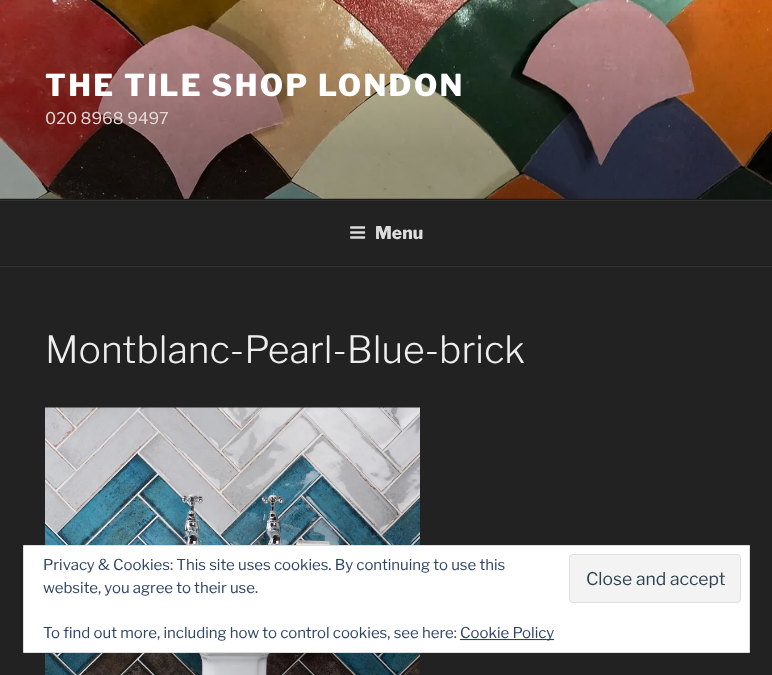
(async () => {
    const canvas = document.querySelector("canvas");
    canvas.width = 772;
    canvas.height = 675;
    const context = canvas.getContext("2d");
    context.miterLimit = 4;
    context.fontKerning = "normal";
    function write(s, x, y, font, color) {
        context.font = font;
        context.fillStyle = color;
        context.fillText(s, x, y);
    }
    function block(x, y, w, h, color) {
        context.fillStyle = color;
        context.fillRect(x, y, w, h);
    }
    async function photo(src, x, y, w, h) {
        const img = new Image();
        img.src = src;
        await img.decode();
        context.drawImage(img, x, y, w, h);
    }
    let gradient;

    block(0, 0, 772, 675, "rgb(34, 34, 34)");
    block(0, 198, 772, 2, "rgb(38, 38, 38)");
    await photo("media/1.png", 0, 0, 772, 199);
    gradient = context.createLinearGradient(386, 0, 386, 200);
    gradient.addColorStop(0, "rgba(0, 0, 0, 0)");
    gradient.addColorStop(0.75, "rgba(0, 0, 0, 0.3)");
    gradient.addColorStop(1, "rgba(0, 0, 0, 0.3)");
    context.fillStyle = gradient;
    context.fillRect(0, 11, 772, 189);
    context.letterSpacing = "2.4px";
    write("THE TILE SHOP LONDON", 45, 96, "100 30px Libre Franklin", "rgb(255, 255, 255)");
    context.letterSpacing = "0px";
    write("020 8968 9497", 45, 124, "100 16.25px 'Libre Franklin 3'", "rgb(229, 217, 216)");
    block(0, 200, 772, 1, "rgb(51, 51, 51)");
    block(0, 266, 772, 1, "rgb(51, 51, 51)");
    await photo("media/2.png", 350, 226, 16, 13);
    write("Menu", 375, 239, "100 17.5px Libre Franklin", "rgb(221, 221, 221)");
    write("Montblanc-Pearl-Blue-brick", 45, 363, "100 37.5px 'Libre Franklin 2'", "rgb(238, 238, 238)");
    await photo("media/3.png", 45, 407, 375, 268);
    context.fillStyle = "rgb(255, 255, 255)";
    context.beginPath();
    context.rect(23.5, 545.5, 726, 107);
    context.fill();
    context.strokeStyle = "rgb(222, 222, 222)";
    context.stroke();
    write("Privacy & Cookies: This site uses cookies. By continuing to use this", 43, 570, "100 15px 'Libre Franklin 3'", "rgb(46, 68, 103)");
    write("website, you agree to their use.", 43, 593, "100 15px 'Libre Franklin 3'", "rgb(46, 68, 103)");
    context.fillStyle = "rgb(243, 243, 243)";
    context.beginPath();
    context.roundRect(569.5, 554.5, 171, 48, 3.5);
    context.fill();
    context.stroke();
    write("Close and accept", 586, 585, "100 17.5px 'Libre Franklin 3'", "rgb(46, 68, 83)");
    write("To find out more, including how to control cookies, see here:", 43, 638, "100 15px 'Libre Franklin 3'", "rgb(46, 68, 103)");
    block(460, 640, 94, 1, "rgb(240, 240, 240)");
    block(460, 639, 94, 1, "rgb(46, 68, 103)");
    write("Cookie Policy", 460, 638, "100 15px 'Libre Franklin 3'", "rgb(46, 68, 103)");
})();
